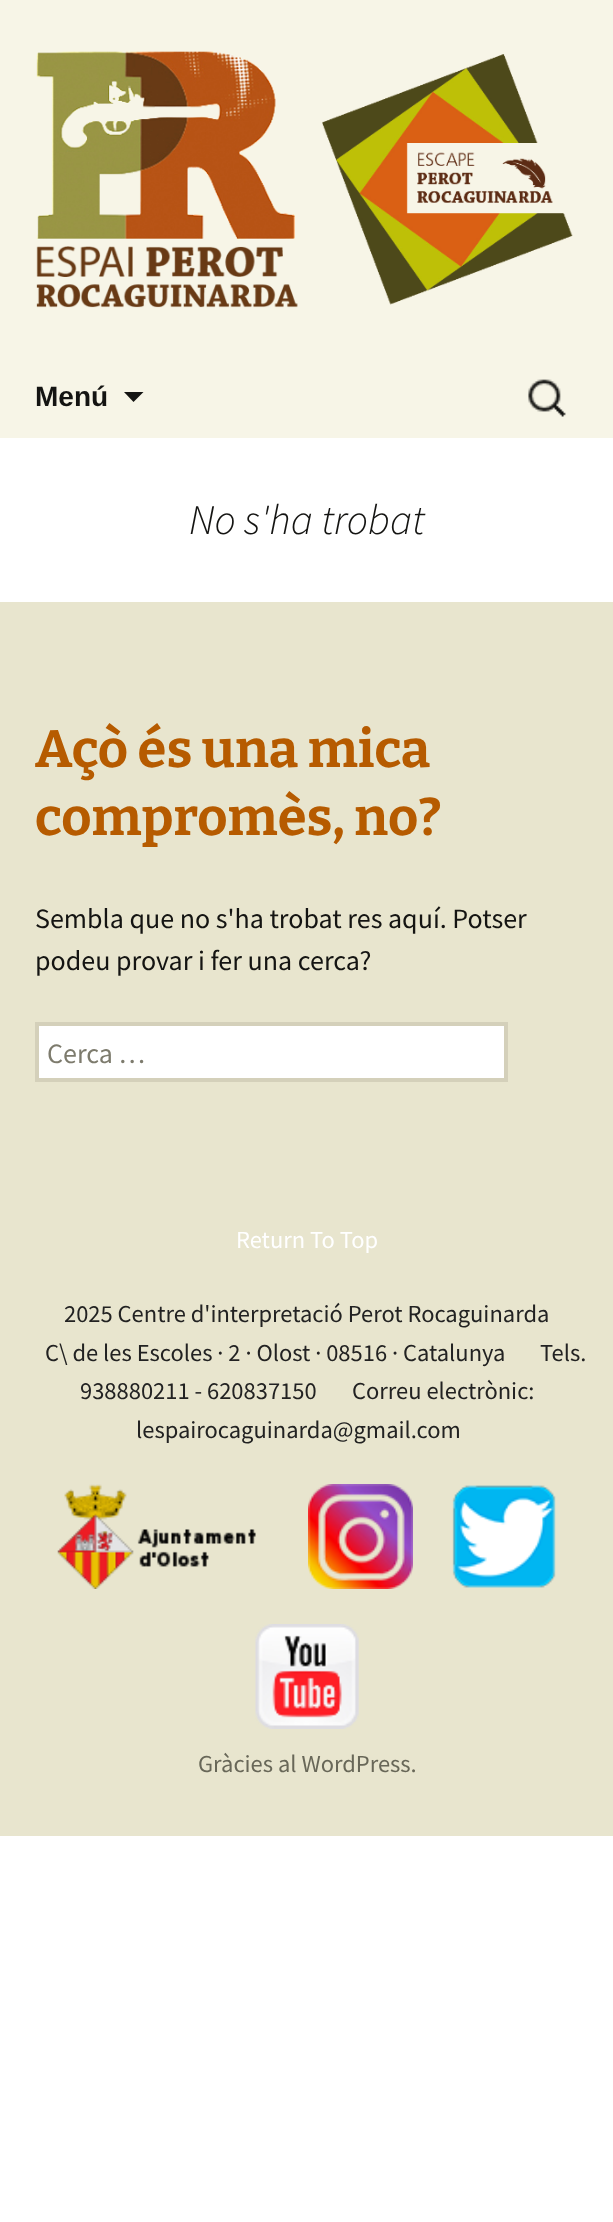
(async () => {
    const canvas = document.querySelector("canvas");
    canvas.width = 613;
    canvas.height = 2222;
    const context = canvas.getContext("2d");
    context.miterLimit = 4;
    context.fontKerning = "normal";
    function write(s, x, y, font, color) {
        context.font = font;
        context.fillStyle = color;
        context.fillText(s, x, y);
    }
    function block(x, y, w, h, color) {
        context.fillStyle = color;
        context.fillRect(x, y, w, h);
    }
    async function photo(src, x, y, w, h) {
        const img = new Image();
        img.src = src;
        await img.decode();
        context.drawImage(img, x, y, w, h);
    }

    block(0, 0, 613, 2222, "rgb(255, 255, 255)");
    block(0, 0, 613, 438, "rgb(247, 245, 231)");
    await photo("media/1.png", 36, 51, 262, 257);
    await photo("media/2.png", 322, 54, 251, 251);
    write("Menú", 35, 406, "bold 28px Liberation Sans", "rgb(20, 20, 18)");
    context.beginPath();
    context.moveTo(124, 392);
    context.lineTo(133.5, 402);
    context.lineTo(143.5, 392);
    context.closePath();
    context.fill();
    await photo("media/3.png", 528, 379, 38, 38);
    write("No s'ha trobat", 189, 534, "italic 300 42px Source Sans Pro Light", "rgb(20, 20, 18)");
    block(0, 602, 613, 1234, "rgb(232, 229, 206)");
    write("Açò és una mica", 35, 767, "bold 52.5px Bitter", "rgb(182, 91, 0)");
    write("compromès, no?", 35, 835, "bold 52.5px Bitter", "rgb(182, 91, 0)");
    write("Sembla que no s'ha trobat res aquí. Potser", 35, 928, "28px Source Sans Pro", "rgb(20, 20, 18)");
    write("podeu provar i fer una cerca?", 35, 970, "28px Source Sans Pro", "rgb(20, 20, 18)");
    context.fillStyle = "rgb(255, 255, 255)";
    context.beginPath();
    context.rect(37, 1024, 469, 56);
    context.fill();
    context.strokeStyle = "rgb(212, 208, 186)";
    context.lineWidth = 4;
    context.stroke();
    write("Cerca …", 47, 1063, "28px Source Sans Pro", "rgb(125, 123, 109)");
    write("Return To Top", 236, 1248, "24.5px Source Sans Pro", "rgb(255, 255, 255)");
    write("2025 Centre d'interpretació Perot Rocaguinarda", 64, 1322, "24.5px Source Sans Pro", "rgb(34, 34, 34)");
    write("C\\ de les Escoles · 2 · Olost · 08516 · Catalunya", 45, 1361, "24.5px Source Sans Pro", "rgb(34, 34, 34)");
    write("Tels.", 540, 1361, "24.5px Source Sans Pro", "rgb(34, 34, 34)");
    write("938880211 - 620837150", 80, 1399, "24.5px Source Sans Pro", "rgb(34, 34, 34)");
    write("Correu electrònic:", 352, 1399, "24.5px Source Sans Pro", "rgb(34, 34, 34)");
    write("lespairocaguinarda@gmail.com", 136, 1438, "24.5px Source Sans Pro", "rgb(34, 34, 34)");
    await photo("media/4.png", 57, 1484, 199, 105);
    await photo("media/5.png", 308, 1484, 105, 105);
    await photo("media/6.png", 452, 1485, 104, 103);
    await photo("media/7.png", 255, 1624, 104, 105);
    write("Gràcies al WordPress.", 198, 1772, "24.5px Source Sans Pro", "rgb(104, 103, 88)");
})();
